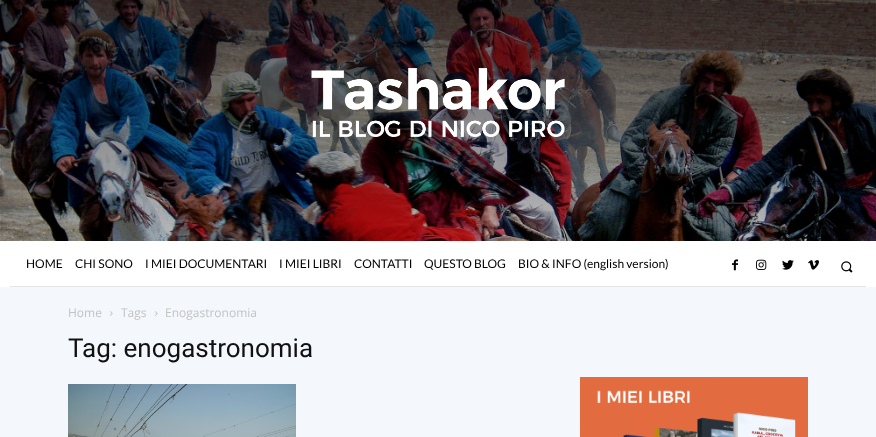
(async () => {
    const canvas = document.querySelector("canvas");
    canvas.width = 876;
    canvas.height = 437;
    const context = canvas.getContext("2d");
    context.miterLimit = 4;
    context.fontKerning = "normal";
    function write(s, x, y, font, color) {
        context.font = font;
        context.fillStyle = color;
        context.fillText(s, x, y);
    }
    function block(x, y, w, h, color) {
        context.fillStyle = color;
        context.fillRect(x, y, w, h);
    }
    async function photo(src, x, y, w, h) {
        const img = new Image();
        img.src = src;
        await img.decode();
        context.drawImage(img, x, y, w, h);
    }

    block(0, 0, 876, 437, "rgb(244, 247, 252)");
    await photo("media/1.png", 0, 0, 876, 241);
    await photo("media/2.png", 311, 68, 254, 69);
    block(0, 241, 876, 46, "rgb(255, 255, 255)");
    write("HOME", 26, 268, "12px Lato", "rgb(0, 0, 0)");
    write("CHI SONO", 75, 268, "12px Lato", "rgb(0, 0, 0)");
    write("I MIEI DOCUMENTARI", 145, 268, "12px Lato", "rgb(0, 0, 0)");
    write("I MIEI LIBRI", 279, 268, "12px Lato", "rgb(0, 0, 0)");
    write("CONTATTI", 354, 268, "12px Lato", "rgb(0, 0, 0)");
    write("QUESTO BLOG", 424, 268, "12px Lato", "rgb(0, 0, 0)");
    write("BIO & INFO (english version)", 518, 268, "12px Lato", "rgb(0, 0, 0)");
    await photo("media/3.png", 732, 259, 6, 12);
    await photo("media/4.png", 756, 259, 11, 11);
    await photo("media/5.png", 782, 260, 12, 10);
    await photo("media/6.png", 808, 260, 11, 10);
    await photo("media/7.png", 841, 261, 12, 12);
    block(10, 286, 856, 1, "rgb(229, 229, 229)");
    write("Home", 68, 317, "12px Open Sans", "rgb(195, 195, 195)");
    await photo("media/8.png", 110, 311, 3, 5);
    write("Tags", 121, 317, "12px Open Sans", "rgb(195, 195, 195)");
    await photo("media/8.png", 155, 311, 3, 5);
    write("Enogastronomia", 165, 317, "12px Open Sans", "rgb(195, 195, 195)");
    write("Tag: enogastronomia", 68, 357, "26px Roboto", "rgb(17, 17, 17)");
    await photo("media/9.png", 68, 384, 228, 53);
    await photo("media/10.png", 580, 377, 228, 60);
})();
